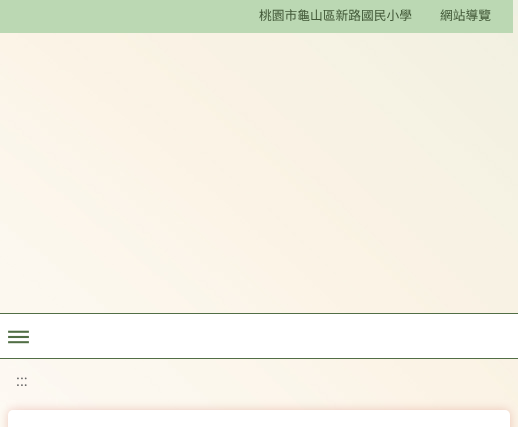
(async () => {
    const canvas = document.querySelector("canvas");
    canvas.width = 518;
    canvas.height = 427;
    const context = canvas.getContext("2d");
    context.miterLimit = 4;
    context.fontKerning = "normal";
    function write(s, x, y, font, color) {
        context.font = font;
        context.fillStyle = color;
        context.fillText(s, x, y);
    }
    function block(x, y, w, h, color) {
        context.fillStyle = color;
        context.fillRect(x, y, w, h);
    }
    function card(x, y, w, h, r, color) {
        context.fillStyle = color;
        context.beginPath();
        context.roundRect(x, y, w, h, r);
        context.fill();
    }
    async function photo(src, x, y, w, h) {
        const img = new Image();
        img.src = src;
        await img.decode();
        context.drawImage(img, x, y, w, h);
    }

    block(0, 0, 518, 427, "rgb(255, 255, 255)");
    await photo("media/1.png", 0, 0, 518, 427);
    block(0, 0, 513, 33, "rgb(187, 216, 179)");
    write("桃園市龜山區新路國民小學", 259, 20, "12.75px Noto Sans CJK TC", "rgb(66, 89, 56)");
    write("網站導覽", 440, 20, "12.75px Noto Sans CJK TC", "rgb(66, 89, 56)");
    block(0, 314, 518, 44, "rgb(255, 255, 255)");
    block(0, 313, 518, 1, "rgb(81, 110, 69)");
    block(0, 358, 518, 1, "rgb(81, 110, 69)");
    await photo("media/2.png", 8, 330, 21, 14);
    write(":::", 16, 386, "16px Roboto", "rgb(102, 102, 102)");
    context.fillStyle = "rgba(221, 151, 135, 0.5)";
    context.filter = "blur(5px)";
    context.beginPath();
    context.roundRect(8, 410, 502, 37, 5);
    context.fill();
    context.filter = "none";
    card(8, 410, 502, 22, 5, "rgb(255, 255, 255)");
})();
